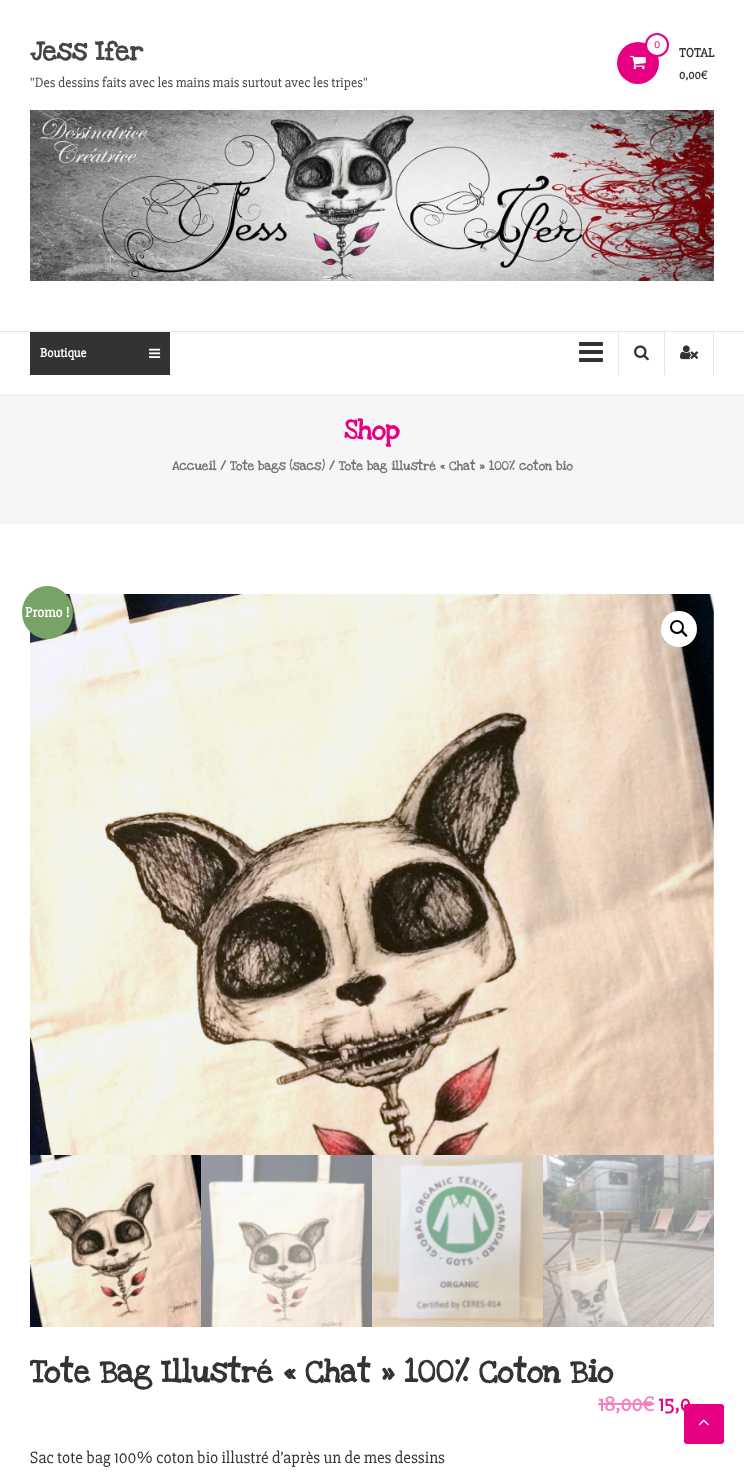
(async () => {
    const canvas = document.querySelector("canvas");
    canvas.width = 744;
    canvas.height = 1474;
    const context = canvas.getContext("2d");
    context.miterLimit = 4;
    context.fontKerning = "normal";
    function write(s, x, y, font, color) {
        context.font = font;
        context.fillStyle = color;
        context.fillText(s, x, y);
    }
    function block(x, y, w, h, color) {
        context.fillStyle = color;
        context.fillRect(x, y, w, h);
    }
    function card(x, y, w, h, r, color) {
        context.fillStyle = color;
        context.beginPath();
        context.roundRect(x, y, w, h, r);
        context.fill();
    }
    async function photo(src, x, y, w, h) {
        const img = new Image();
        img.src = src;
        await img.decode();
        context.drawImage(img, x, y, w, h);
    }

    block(0, 0, 744, 1474, "rgb(255, 255, 255)");
    write("Jess Ifer", 30, 60, "bold 28px Love Ya Like A Sister", "rgb(69, 69, 69)");
    write("\"Des dessins faits avec les mains mais surtout avec les tripes\"", 30, 87, "14px 'Slabo 27px'", "rgb(69, 69, 69)");
    context.fillStyle = "rgb(232, 0, 131)";
    context.beginPath();
    context.arc(638, 63, 21, 0, Math.PI * 2);
    context.fill();
    await photo("media/1.png", 630, 55, 16, 15);
    context.fillStyle = "rgb(255, 255, 255)";
    context.beginPath();
    context.arc(657, 45, 11, 0, Math.PI * 2);
    context.fill();
    context.strokeStyle = "rgb(232, 0, 131)";
    context.lineWidth = 2;
    context.stroke();
    write("0", 654, 48, "12px 'Slabo 27px'", "rgb(232, 0, 131)");
    write("TOTAL", 679, 57, "bold 13px 'Slabo 27px'", "rgb(51, 51, 51)");
    write("0,00€", 679, 79, "bold 12px 'Slabo 27px'", "rgb(51, 51, 51)");
    await photo("media/2.png", 30, 110, 684, 171);
    block(0, 331, 744, 1, "rgb(229, 229, 229)");
    block(0, 395, 744, 1, "rgb(229, 229, 229)");
    block(30, 332, 140, 43, "rgb(51, 51, 51)");
    write("Boutique", 40, 357, "bold 13px 'Slabo 27px'", "rgb(255, 255, 255)");
    await photo("media/3.png", 149, 348, 12, 10);
    await photo("media/4.png", 579, 342, 24, 20);
    block(618, 332, 1, 43, "rgb(229, 229, 229)");
    await photo("media/5.png", 634, 345, 15, 16);
    block(713, 332, 1, 43, "rgb(229, 229, 229)");
    block(664, 332, 1, 43, "rgb(229, 229, 229)");
    await photo("media/6.png", 680, 345, 19, 15);
    block(0, 396, 744, 128, "rgb(246, 246, 246)");
    write("Shop", 344, 439, "bold 28px Love Ya Like A Sister", "rgb(232, 0, 131)");
    write("Accueil / Tote bags (sacs) / Tote bag illustré « Chat » 100% coton bio", 172, 470, "bold 12.9px Love Ya Like A Sister", "rgb(119, 119, 119)");
    await photo("media/7.png", 30, 594, 684, 561);
    context.fillStyle = "rgb(255, 255, 255)";
    context.beginPath();
    context.arc(679, 629, 18, 0, Math.PI * 2);
    context.fill();
    context.beginPath();
    context.arc(677, 627, 6, 0, Math.PI * 2);
    context.strokeStyle = "rgb(0, 0, 0)";
    context.stroke();
    context.fillStyle = "rgb(0, 0, 0)";
    context.beginPath();
    context.moveTo(681.5, 630.5);
    context.bezierCurveTo(682.5, 629.5, 684.5, 632, 685, 633);
    context.bezierCurveTo(685.5, 633.5, 688.5, 635, 687, 636.5);
    context.bezierCurveTo(686, 637.5, 684, 635, 683.5, 634.5);
    context.bezierCurveTo(683, 633.5, 680, 632, 681.5, 630.5);
    context.closePath();
    context.fill();
    await photo("media/8.png", 30, 1155, 171, 172);
    await photo("media/9.png", 201, 1155, 171, 172);
    await photo("media/10.png", 372, 1155, 171, 172);
    await photo("media/11.png", 543, 1155, 171, 172);
    context.fillStyle = "rgb(119, 164, 100)";
    context.beginPath();
    context.ellipse(47.5, 612.5, 25.5, 26.5, 0, 0, Math.PI * 2);
    context.fill();
    write("Promo !", 25, 617, "bold 14.5px 'Slabo 27px'", "rgb(255, 255, 255)");
    write("Tote Bag Illustré « Chat » 100% Coton Bio", 30, 1382, "bold 32px Love Ya Like A Sister", "rgb(51, 51, 51)");
    write("18,00€", 598, 1411, "bold 21px 'Slabo 27px'", "rgb(244, 128, 193)");
    block(598, 1403, 56, 2, "rgb(244, 128, 193)");
    write("15,0", 658, 1411, "bold 21px 'Slabo 27px'", "rgb(232, 0, 131)");
    write("Sac tote bag 100% coton bio illustré d’après un de mes dessins", 30, 1463, "17px 'Slabo 27px'", "rgb(51, 51, 51)");
    card(684, 1404, 40, 40, 3, "rgb(232, 0, 131)");
    await photo("media/12.png", 698, 1419, 11, 7);
})();
